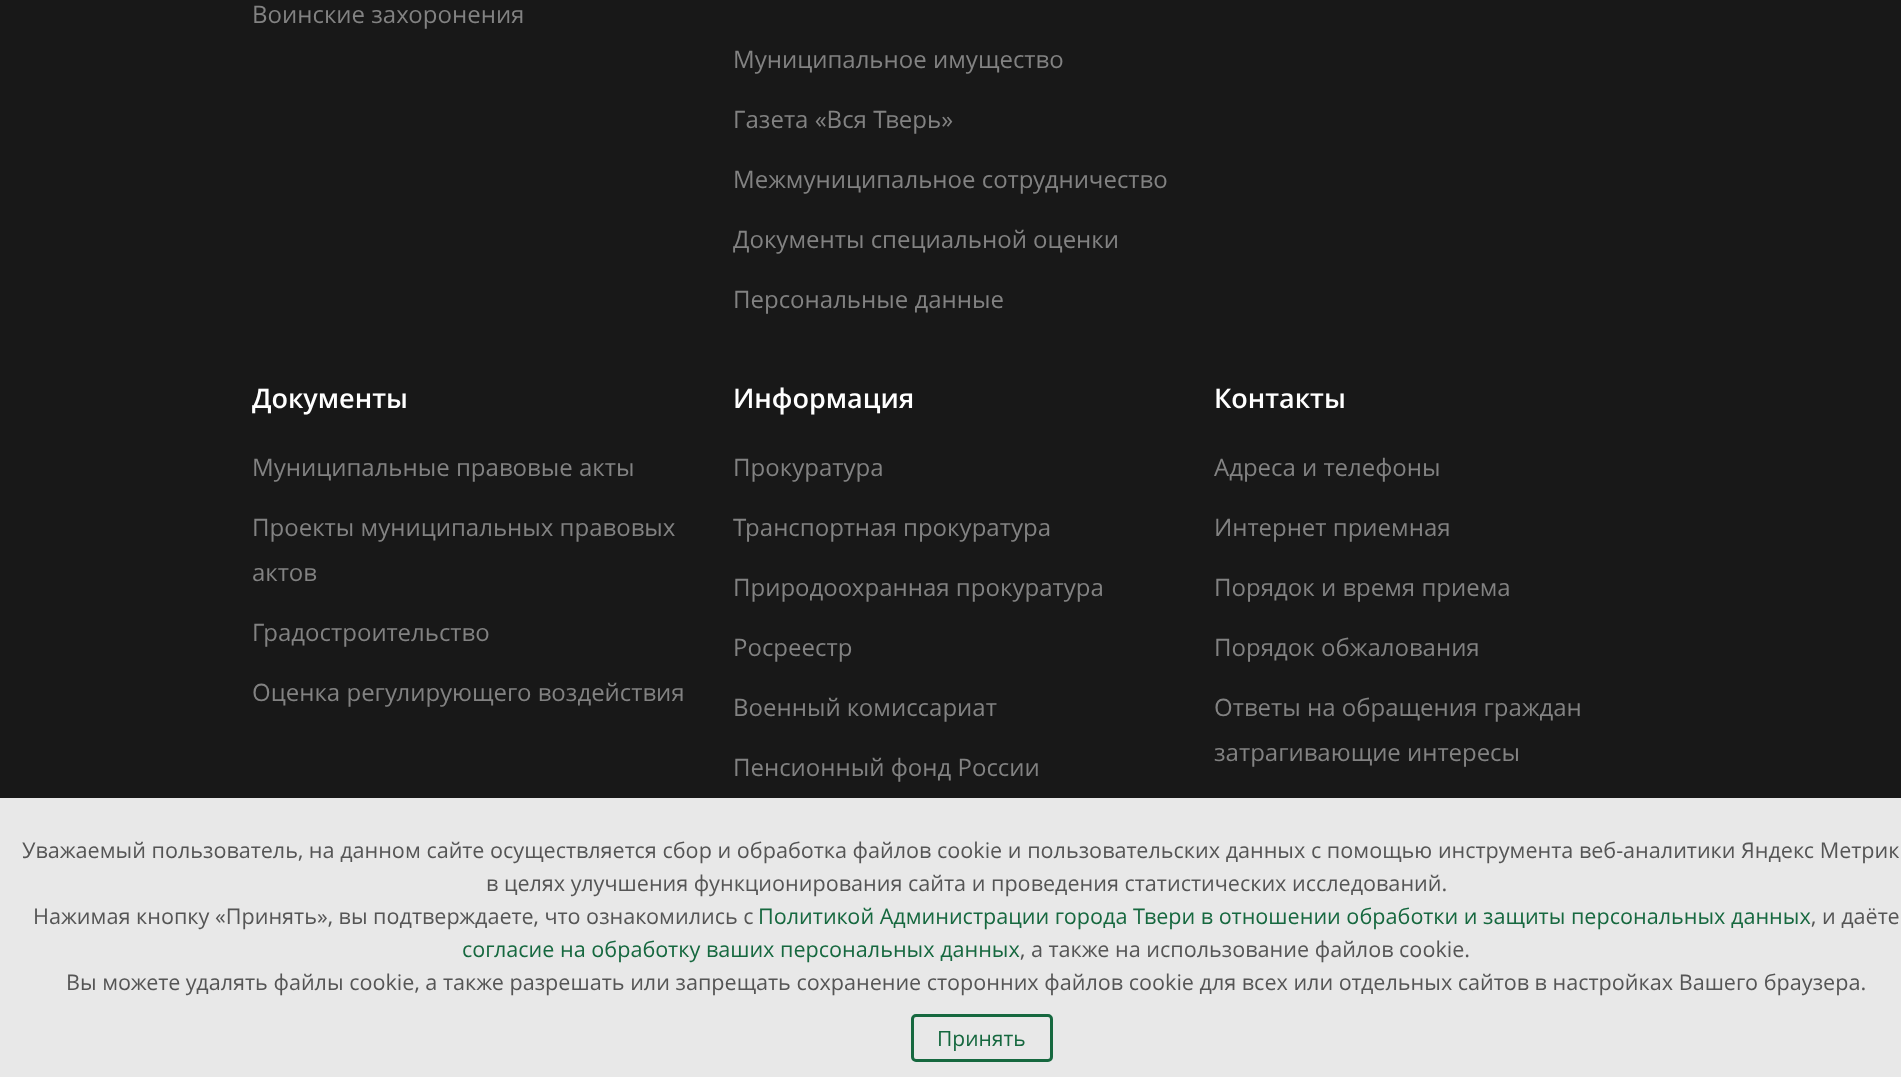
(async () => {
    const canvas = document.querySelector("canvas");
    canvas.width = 1901;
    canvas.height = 1077;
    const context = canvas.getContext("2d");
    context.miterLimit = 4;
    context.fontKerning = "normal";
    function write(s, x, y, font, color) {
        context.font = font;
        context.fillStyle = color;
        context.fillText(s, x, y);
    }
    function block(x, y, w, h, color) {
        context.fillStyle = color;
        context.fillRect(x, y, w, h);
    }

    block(0, 0, 1901, 1077, "rgb(24, 24, 24)");
    write("Воинские захоронения", 252, 23, "24px Open Sans", "rgb(130, 130, 130)");
    write("Муниципальное имущество", 733, 68, "24px Open Sans", "rgb(130, 130, 130)");
    write("Газета «Вся Тверь»", 733, 128, "24px Open Sans", "rgb(130, 130, 130)");
    write("Межмуниципальное сотрудничество", 733, 188, "24px Open Sans", "rgb(130, 130, 130)");
    write("Документы специальной оценки", 733, 248, "24px Open Sans", "rgb(130, 130, 130)");
    write("Персональные данные", 733, 308, "24px Open Sans", "rgb(130, 130, 130)");
    write("Документы", 252, 408, "600 27px Open Sans", "rgb(255, 255, 255)");
    write("Муниципальные правовые акты", 252, 476, "24px Open Sans", "rgb(130, 130, 130)");
    write("Проекты муниципальных правовых", 252, 536, "24px Open Sans", "rgb(130, 130, 130)");
    write("актов", 252, 581, "24px Open Sans", "rgb(130, 130, 130)");
    write("Градостроительство", 252, 641, "24px Open Sans", "rgb(130, 130, 130)");
    write("Оценка регулирующего воздействия", 252, 701, "24px Open Sans", "rgb(130, 130, 130)");
    write("Информация", 733, 408, "600 27px Open Sans", "rgb(255, 255, 255)");
    write("Прокуратура", 733, 476, "24px Open Sans", "rgb(130, 130, 130)");
    write("Транспортная прокуратура", 733, 536, "24px Open Sans", "rgb(130, 130, 130)");
    write("Природоохранная прокуратура", 733, 596, "24px Open Sans", "rgb(130, 130, 130)");
    write("Росреестр", 733, 656, "24px Open Sans", "rgb(130, 130, 130)");
    write("Военный комиссариат", 733, 716, "24px Open Sans", "rgb(130, 130, 130)");
    write("Пенсионный фонд России", 733, 776, "24px Open Sans", "rgb(130, 130, 130)");
    write("Контакты", 1214, 408, "600 27px Open Sans", "rgb(255, 255, 255)");
    write("Адреса и телефоны", 1214, 476, "24px Open Sans", "rgb(130, 130, 130)");
    write("Интернет приемная", 1214, 536, "24px Open Sans", "rgb(130, 130, 130)");
    write("Порядок и время приема", 1214, 596, "24px Open Sans", "rgb(130, 130, 130)");
    write("Порядок обжалования", 1214, 656, "24px Open Sans", "rgb(130, 130, 130)");
    write("Ответы на обращения граждан", 1214, 716, "24px Open Sans", "rgb(130, 130, 130)");
    write("затрагивающие интересы", 1214, 761, "24px Open Sans", "rgb(130, 130, 130)");
    block(0, 798, 1901, 279, "rgba(255, 255, 255, 0.9)");
    write("Уважаемый пользователь, на данном сайте осуществляется сбор и обработка файлов cookie и пользовательских данных с помощью инструмента веб-аналитики Яндекс Метрик", 22, 858, "21.6px Open Sans", "rgb(85, 85, 85)");
    write("в целях улучшения функционирования сайта и проведения статистических исследований.", 486, 891, "21.6px Open Sans", "rgb(85, 85, 85)");
    write("Нажимая кнопку «Принять», вы подтверждаете, что ознакомились с", 33, 924, "21.6px Open Sans", "rgb(85, 85, 85)");
    write("Политикой Администрации города Твери в отношении обработки и защиты персональных данных", 758, 924, "21.6px Open Sans", "rgb(22, 104, 63)");
    write(", и даёте", 1811, 924, "21.6px Open Sans", "rgb(85, 85, 85)");
    write("согласие на обработку ваших персональных данных", 462, 957, "21.6px Open Sans", "rgb(22, 104, 63)");
    write(", а также на использование файлов cookie.", 1020, 957, "21.6px Open Sans", "rgb(85, 85, 85)");
    write("Вы можете удалять файлы cookie, а также разрешать или запрещать сохранение сторонних файлов cookie для всех или отдельных сайтов в настройках Вашего браузера.", 66, 990, "21.6px Open Sans", "rgb(85, 85, 85)");
    context.beginPath();
    context.roundRect(912.5, 1015.5, 139, 45, 3.5);
    context.strokeStyle = "rgb(22, 104, 63)";
    context.lineWidth = 3;
    context.stroke();
    write("Принять", 937, 1046, "21px Open Sans", "rgb(22, 104, 63)");
})();
